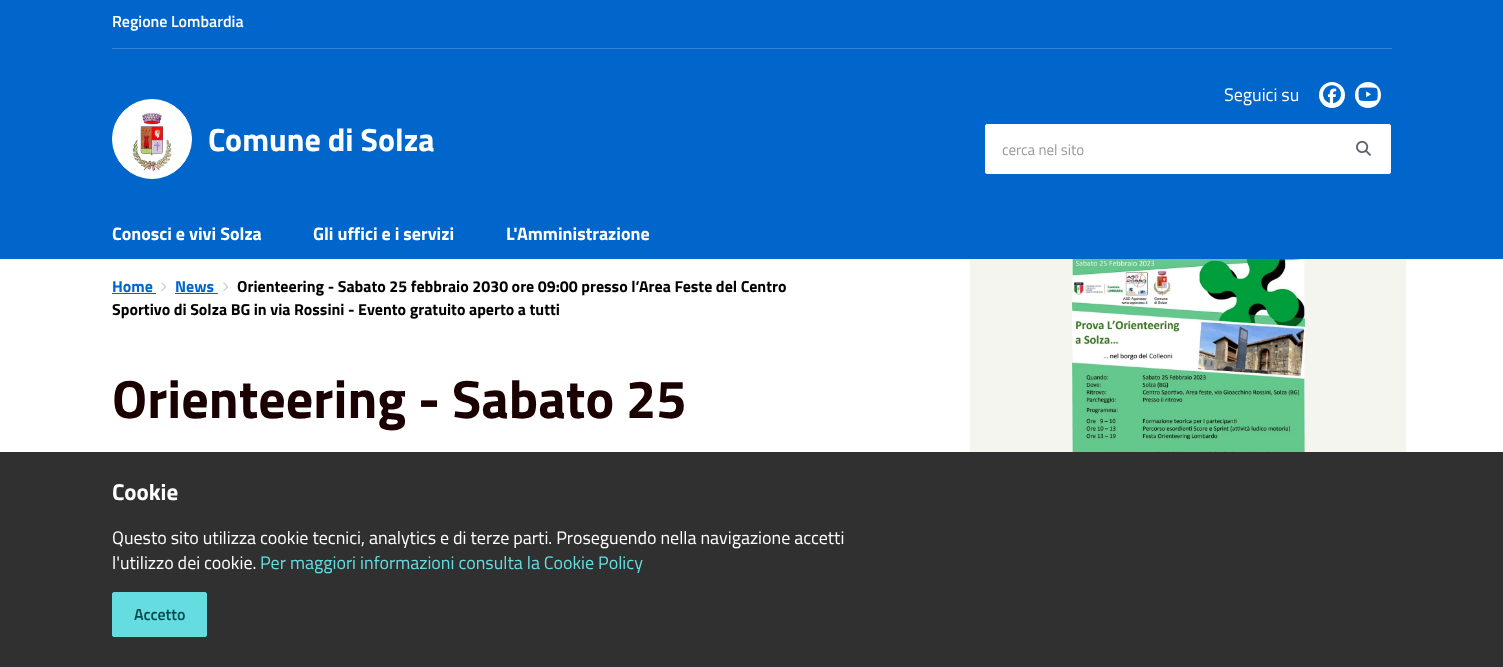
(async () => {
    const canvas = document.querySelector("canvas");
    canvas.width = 1503;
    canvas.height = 667;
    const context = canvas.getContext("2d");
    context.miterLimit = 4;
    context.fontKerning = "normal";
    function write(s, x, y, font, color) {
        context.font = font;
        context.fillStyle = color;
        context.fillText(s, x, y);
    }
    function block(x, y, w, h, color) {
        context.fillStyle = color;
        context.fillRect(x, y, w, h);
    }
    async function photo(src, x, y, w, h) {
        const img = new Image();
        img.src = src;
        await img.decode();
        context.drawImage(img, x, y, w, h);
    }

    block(0, 0, 1503, 667, "rgb(255, 255, 255)");
    block(0, 0, 1503, 259, "rgb(0, 102, 204)");
    write("Regione Lombardia", 112, 27, "600 16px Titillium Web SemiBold", "rgb(255, 255, 255)");
    block(112, 48, 1280, 1, "rgb(51, 133, 214)");
    context.fillStyle = "rgb(255, 255, 255)";
    context.beginPath();
    context.arc(152, 139, 39.5, 0, Math.PI * 2);
    context.fill();
    context.strokeStyle = "rgb(255, 255, 255)";
    context.stroke();
    await photo("media/1.png", 132, 112, 40, 60);
    write("Comune di Solza", 208, 151, "bold 32px Titillium Web", "rgb(255, 255, 255)");
    write("Seguici su", 1224, 101, "18px Titillium Web", "rgb(255, 255, 255)");
    context.beginPath();
    context.arc(1332, 95, 13, 0, Math.PI * 2);
    context.fill();
    await photo("media/2.png", 1323, 85, 18, 19);
    context.beginPath();
    context.arc(1368, 95, 13, 0, Math.PI * 2);
    context.fill();
    await photo("media/3.png", 1358, 87, 20, 14);
    context.beginPath();
    context.roundRect(985.5, 124.5, 405, 49, 1.5);
    context.fill();
    context.stroke();
    write("cerca nel sito", 1002, 155, "15px Titillium Web", "rgb(153, 153, 153)");
    await photo("media/4.png", 1356, 140, 15, 16);
    write("Conosci e vivi Solza", 112, 240, "bold 18px Titillium Web", "rgb(255, 255, 255)");
    write("Gli uffici e i servizi", 313, 240, "bold 18px Titillium Web", "rgb(255, 255, 255)");
    write("L'Amministrazione", 506, 240, "bold 18px Titillium Web", "rgb(255, 255, 255)");
    write("Home", 112, 292, "bold 16px Titillium Web", "rgb(0, 102, 204)");
    block(112, 293, 44, 1, "rgb(0, 102, 204)");
    await photo("media/5.png", 161, 282, 6, 10);
    write("News", 175, 292, "bold 16px Titillium Web", "rgb(0, 102, 204)");
    block(175, 293, 43, 1, "rgb(0, 102, 204)");
    await photo("media/5.png", 223, 282, 6, 10);
    write("Orienteering - Sabato 25 febbraio 2030 ore 09:00 presso l’Area Feste del Centro", 237, 292, "bold 16px Titillium Web", "rgb(0, 0, 0)");
    write("Sportivo di Solza BG in via Rossini - Evento gratuito aperto a tutti", 112, 315, "bold 16px Titillium Web", "rgb(0, 0, 0)");
    write("Orienteering - Sabato 25", 112, 418, "bold 54px Titillium Web", "rgb(26, 0, 0)");
    block(970, 259, 436, 193, "rgb(245, 245, 240)");
    await photo("media/6.png", 1072, 259, 233, 193);
    block(0, 452, 1503, 215, "rgb(48, 48, 48)");
    write("Cookie", 112, 500, "bold 23px Titillium Web", "rgb(255, 255, 255)");
    write("Questo sito utilizza cookie tecnici, analytics e di terze parti. Proseguendo nella navigazione accetti", 112, 544, "18px Titillium Web", "rgb(255, 255, 255)");
    write("l'utilizzo dei cookie.", 112, 569, "18px Titillium Web", "rgb(255, 255, 255)");
    write("Per maggiori informazioni consulta la Cookie Policy", 260, 569, "18px Titillium Web", "rgb(101, 221, 224)");
    context.beginPath();
    context.roundRect(112.5, 592.5, 94, 44, 1.5);
    context.fill();
    context.strokeStyle = "rgb(101, 221, 224)";
    context.stroke();
    write("Accetto", 134, 620, "600 16px Titillium Web SemiBold", "rgb(0, 74, 77)");
})();
